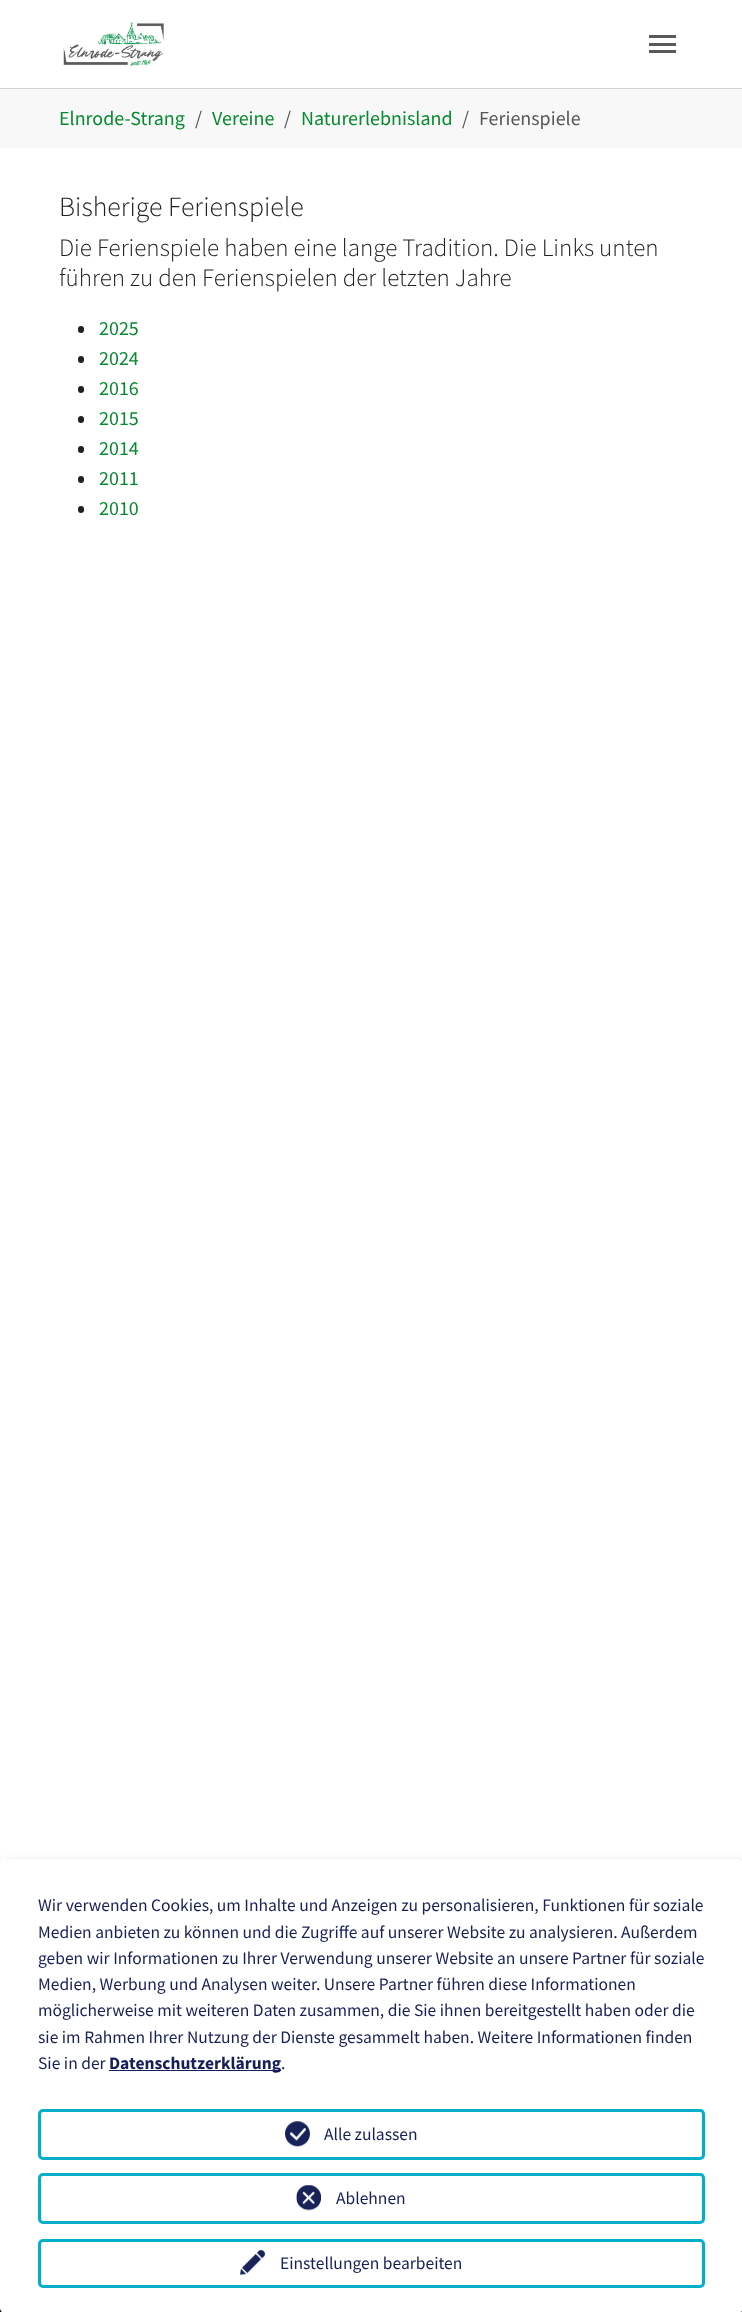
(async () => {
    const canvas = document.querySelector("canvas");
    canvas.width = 742;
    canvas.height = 2312;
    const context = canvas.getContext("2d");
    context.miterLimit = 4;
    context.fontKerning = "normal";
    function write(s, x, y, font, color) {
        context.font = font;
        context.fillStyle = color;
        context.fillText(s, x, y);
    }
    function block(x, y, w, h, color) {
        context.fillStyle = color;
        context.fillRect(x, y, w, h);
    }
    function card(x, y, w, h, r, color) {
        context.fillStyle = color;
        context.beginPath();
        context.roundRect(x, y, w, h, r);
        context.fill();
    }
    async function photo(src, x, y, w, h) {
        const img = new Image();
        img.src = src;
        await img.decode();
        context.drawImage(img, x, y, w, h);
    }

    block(0, 0, 742, 2312, "rgb(255, 255, 255)");
    context.fillStyle = "rgb(211, 211, 211)";
    context.beginPath();
    context.moveTo(0, 88);
    context.lineTo(0, 89);
    context.lineTo(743, 89);
    context.lineTo(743, 1);
    context.lineTo(742, 1);
    context.lineTo(742, 88);
    context.closePath();
    context.fill();
    await photo("media/1.png", 63, 21, 101, 45);
    block(649, 43, 27, 3, "rgb(89, 89, 89)");
    block(649, 35, 27, 3, "rgb(89, 89, 89)");
    block(649, 50, 27, 3, "rgb(89, 89, 89)");
    block(0, 89, 742, 59, "rgb(248, 248, 248)");
    write("Elnrode-Strang", 59, 125, "20px Source Sans Pro", "rgb(7, 137, 48)");
    write("/", 195, 125, "20px Source Sans Pro", "rgb(87, 87, 87)");
    write("Vereine", 212, 125, "20px Source Sans Pro", "rgb(7, 137, 48)");
    write("/", 284, 125, "20px Source Sans Pro", "rgb(87, 87, 87)");
    write("Naturerlebnisland", 301, 125, "20px Source Sans Pro", "rgb(7, 137, 48)");
    write("/", 462, 125, "20px Source Sans Pro", "rgb(87, 87, 87)");
    write("Ferienspiele", 479, 125, "20px Source Sans Pro", "rgb(87, 87, 87)");
    write("Bisherige Ferienspiele", 59, 216, "300 27.75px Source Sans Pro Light", "rgb(33, 33, 33)");
    write("Die Ferienspiele haben eine lange Tradition. Die Links unten", 59, 256, "300 25px Source Sans Pro Light", "rgb(33, 33, 33)");
    write("führen zu den Ferienspielen der letzten Jahre", 59, 286, "300 25px Source Sans Pro Light", "rgb(33, 33, 33)");
    card(78, 326, 6, 7, 3, "rgb(33, 33, 33)");
    write("2025", 99, 335, "20px Source Sans Pro", "rgb(7, 137, 48)");
    card(78, 356, 6, 7, 3, "rgb(33, 33, 33)");
    write("2024", 99, 365, "20px Source Sans Pro", "rgb(7, 137, 48)");
    card(78, 386, 6, 7, 3, "rgb(33, 33, 33)");
    write("2016", 99, 395, "20px Source Sans Pro", "rgb(7, 137, 48)");
    card(78, 416, 6, 7, 3, "rgb(33, 33, 33)");
    write("2015", 99, 425, "20px Source Sans Pro", "rgb(7, 137, 48)");
    card(78, 446, 6, 7, 3, "rgb(33, 33, 33)");
    write("2014", 99, 455, "20px Source Sans Pro", "rgb(7, 137, 48)");
    card(78, 476, 6, 7, 3, "rgb(33, 33, 33)");
    write("2011", 99, 485, "20px Source Sans Pro", "rgb(7, 137, 48)");
    card(78, 506, 6, 7, 3, "rgb(33, 33, 33)");
    write("2010", 99, 515, "20px Source Sans Pro", "rgb(7, 137, 48)");
    block(0, 2308, 742, 4, "rgb(27, 27, 27)");
    context.fillStyle = "rgba(0, 0, 0, 0.19)";
    context.filter = "blur(6px)";
    context.beginPath();
    context.roundRect(6, 1865, 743, 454, 5);
    context.fill();
    context.filter = "none";
    context.fillStyle = "rgba(0, 0, 0, 0.2)";
    context.filter = "blur(4px)";
    context.beginPath();
    context.roundRect(0, 1864, 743, 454, 5);
    context.fill();
    context.filter = "none";
    card(0, 1859, 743, 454, 5, "rgb(255, 255, 255)");
    write("Wir verwenden Cookies, um Inhalte und Anzeigen zu personalisieren, Funktionen für soziale", 38, 1911, "17.5px Source Sans Pro", "rgb(22, 31, 87)");
    write("Medien anbieten zu können und die Zugriffe auf unserer Website zu analysieren. Außerdem", 38, 1938, "17.5px Source Sans Pro", "rgb(22, 31, 87)");
    write("geben wir Informationen zu Ihrer Verwendung unserer Website an unsere Partner für soziale", 38, 1964, "17.5px Source Sans Pro", "rgb(22, 31, 87)");
    write("Medien, Werbung und Analysen weiter. Unsere Partner führen diese Informationen", 38, 1990, "17.5px Source Sans Pro", "rgb(22, 31, 87)");
    write("möglicherweise mit weiteren Daten zusammen, die Sie ihnen bereitgestellt haben oder die", 38, 2016, "17.5px Source Sans Pro", "rgb(22, 31, 87)");
    write("sie im Rahmen Ihrer Nutzung der Dienste gesammelt haben. Weitere Informationen finden", 38, 2043, "17.5px Source Sans Pro", "rgb(22, 31, 87)");
    write("Sie in der", 38, 2069, "17.5px Source Sans Pro", "rgb(22, 31, 87)");
    block(109, 2070, 172, 1, "rgb(22, 31, 87)");
    write("Datenschutzerklärung", 109, 2069, "bold 17.5px Source Sans Pro", "rgb(22, 31, 87)");
    write(".", 281, 2069, "17.5px Source Sans Pro", "rgb(22, 31, 87)");
    context.beginPath();
    context.roundRect(39.5, 2110.5, 664, 48, 3.5);
    context.strokeStyle = "rgb(0, 175, 203)";
    context.lineWidth = 3;
    context.stroke();
    await photo("media/2.png", 285, 2121, 25, 26);
    write("Alle zulassen", 324, 2140, "17.5px Source Sans Pro", "rgb(22, 31, 87)");
    context.beginPath();
    context.roundRect(39.5, 2174.5, 664, 48, 3.5);
    context.stroke();
    await photo("media/3.png", 296, 2185, 25, 26);
    write("Ablehnen", 336, 2204, "17.5px Source Sans Pro", "rgb(22, 31, 87)");
    context.beginPath();
    context.roundRect(39.5, 2240.5, 664, 46, 3.5);
    context.stroke();
    await photo("media/4.png", 240, 2250, 25, 26);
    write("Einstellungen bearbeiten", 280, 2269, "17.5px Source Sans Pro", "rgb(22, 31, 87)");
})();
